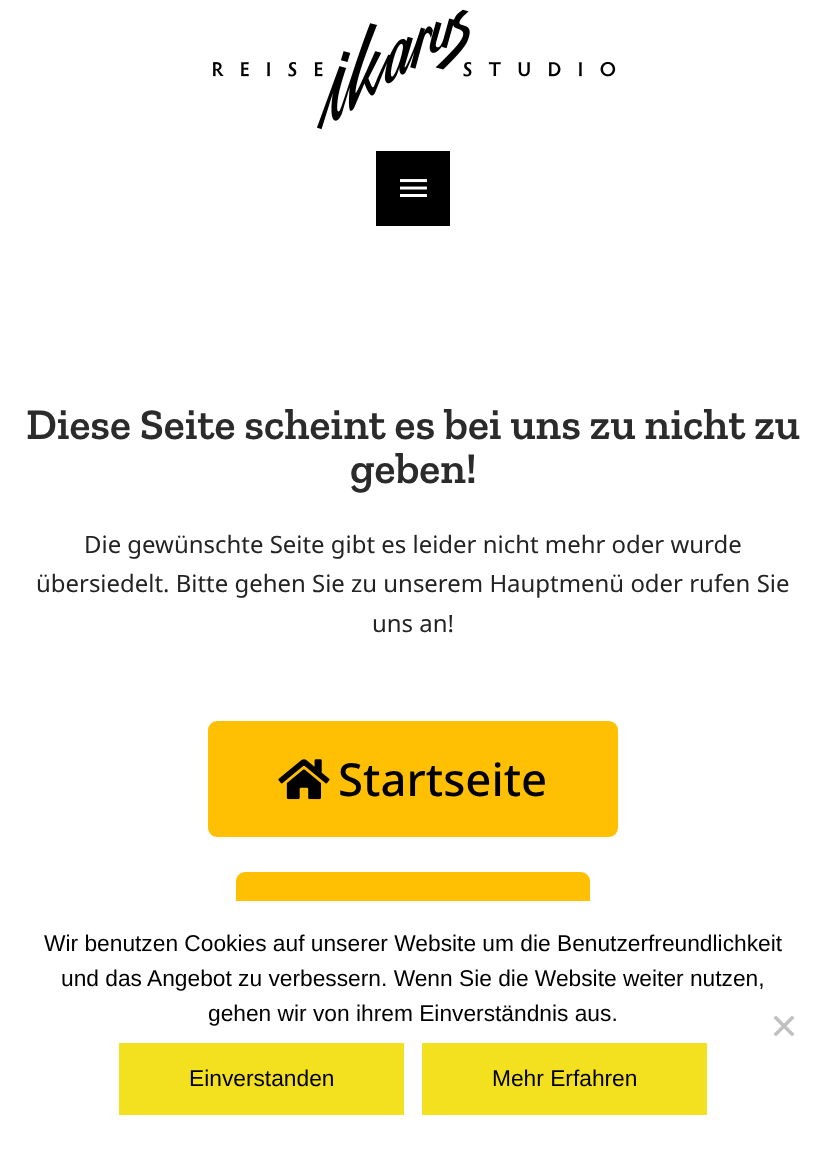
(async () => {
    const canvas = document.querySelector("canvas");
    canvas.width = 826;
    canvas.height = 1149;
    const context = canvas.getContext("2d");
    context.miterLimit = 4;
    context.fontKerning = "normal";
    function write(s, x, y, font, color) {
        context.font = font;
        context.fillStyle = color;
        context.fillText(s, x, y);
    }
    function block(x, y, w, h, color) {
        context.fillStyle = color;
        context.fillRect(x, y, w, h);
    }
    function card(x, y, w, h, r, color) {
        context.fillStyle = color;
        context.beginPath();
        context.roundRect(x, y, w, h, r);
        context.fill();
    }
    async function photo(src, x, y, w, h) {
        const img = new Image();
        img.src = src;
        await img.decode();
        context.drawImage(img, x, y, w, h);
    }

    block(0, 0, 826, 1149, "rgb(255, 255, 255)");
    await photo("media/1.png", 213, 9, 403, 121);
    block(376, 151, 74, 75, "rgb(0, 0, 0)");
    await photo("media/2.png", 400, 179, 27, 18);
    write("Diese Seite scheint es bei uns zu nicht zu", 26, 439, "600 43.75px Zilla Slab", "rgb(43, 43, 43)");
    write("geben!", 350, 483, "600 43.75px Zilla Slab", "rgb(43, 43, 43)");
    write("Die gewünschte Seite gibt es leider nicht mehr oder wurde", 84, 553, "23.95px Noto Sans", "rgb(35, 35, 35)");
    write("übersiedelt. Bitte gehen Sie zu unserem Hauptmenü oder rufen Sie", 36, 592, "23.95px Noto Sans", "rgb(35, 35, 35)");
    write("uns an!", 372, 632, "23.95px Noto Sans", "rgb(35, 35, 35)");
    card(208, 721, 410, 116, 9, "rgb(255, 191, 2)");
    await photo("media/3.png", 278, 759, 52, 41);
    write("Startseite", 338, 796, "500 45.5px Noto Sans", "rgb(0, 0, 0)");
    card(236, 872, 354, 115, 9, "rgb(255, 191, 2)");
    block(236, 901, 354, 86, "rgb(255, 255, 255)");
    write("Wir benutzen Cookies auf unserer Website um die Benutzerfreundlichkeit", 44, 951, "22.75px Liberation Sans", "rgb(0, 0, 0)");
    write("und das Angebot zu verbessern. Wenn Sie die Website weiter nutzen,", 61, 986, "22.75px Liberation Sans", "rgb(0, 0, 0)");
    write("gehen wir von ihrem Einverständnis aus.", 208, 1021, "22.75px Liberation Sans", "rgb(0, 0, 0)");
    context.fillStyle = "rgb(192, 192, 192)";
    context.beginPath();
    context.moveTo(792, 1015.5);
    context.lineTo(794.5, 1018);
    context.lineTo(776, 1036.5);
    context.lineTo(773.5, 1034);
    context.closePath();
    context.fill();
    context.beginPath();
    context.moveTo(773.5, 1018);
    context.lineTo(776, 1015.5);
    context.lineTo(794.5, 1034);
    context.lineTo(792, 1036.5);
    context.closePath();
    context.fill();
    block(119, 1043, 285, 72, "rgb(243, 224, 31)");
    write("Einverstanden", 189, 1086, "22.75px Liberation Sans", "rgb(0, 0, 0)");
    block(422, 1043, 285, 72, "rgb(243, 224, 31)");
    write("Mehr Erfahren", 492, 1086, "22.75px Liberation Sans", "rgb(0, 0, 0)");
})();
